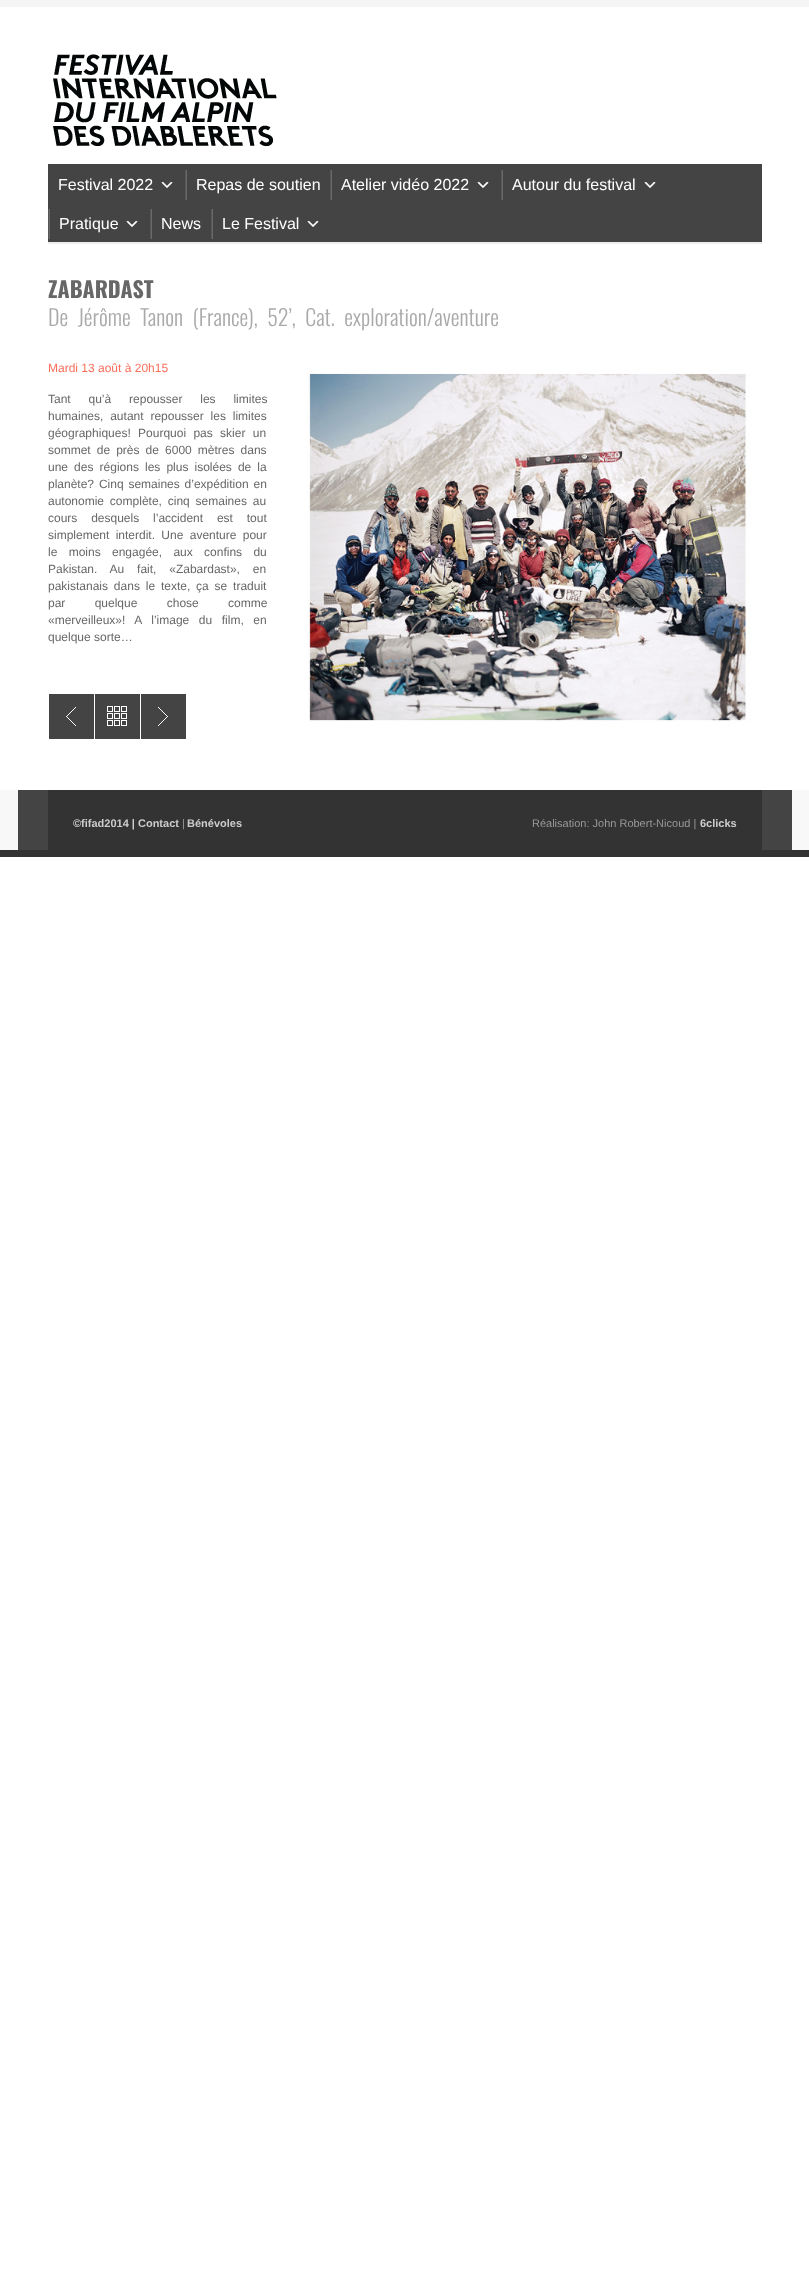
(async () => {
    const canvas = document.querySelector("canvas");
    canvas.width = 809;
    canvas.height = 2286;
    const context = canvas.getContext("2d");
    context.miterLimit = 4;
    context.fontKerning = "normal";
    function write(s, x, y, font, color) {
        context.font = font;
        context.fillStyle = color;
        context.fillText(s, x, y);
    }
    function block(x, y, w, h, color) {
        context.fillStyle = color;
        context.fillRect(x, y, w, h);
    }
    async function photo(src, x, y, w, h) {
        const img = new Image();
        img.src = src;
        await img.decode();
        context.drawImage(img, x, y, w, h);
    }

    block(0, 0, 809, 2286, "rgb(255, 255, 255)");
    block(0, 0, 809, 7, "rgb(245, 245, 245)");
    await photo("media/1.png", 53, 54, 224, 92);
    block(48, 164, 714, 78, "rgb(68, 68, 68)");
    write("Festival 2022", 58, 190, "16px Liberation Sans", "rgb(255, 255, 255)");
    await photo("media/2.png", 161, 181, 12, 7);
    block(186, 170, 1, 30, "rgb(105, 105, 105)");
    block(185, 170, 1, 30, "rgb(87, 87, 87)");
    write("Repas de soutien", 196, 190, "16px Liberation Sans", "rgb(255, 255, 255)");
    block(331, 170, 1, 30, "rgb(105, 105, 105)");
    block(330, 170, 1, 30, "rgb(87, 87, 87)");
    write("Atelier vidéo 2022", 341, 190, "16px Liberation Sans", "rgb(255, 255, 255)");
    await photo("media/2.png", 477, 181, 12, 7);
    block(502, 170, 1, 30, "rgb(105, 105, 105)");
    block(501, 170, 1, 30, "rgb(87, 87, 87)");
    write("Autour du festival", 512, 190, "16px Liberation Sans", "rgb(255, 255, 255)");
    await photo("media/2.png", 644, 181, 12, 7);
    block(49, 209, 1, 30, "rgb(105, 105, 105)");
    block(48, 209, 1, 30, "rgb(87, 87, 87)");
    write("Pratique", 59, 229, "16px Liberation Sans", "rgb(255, 255, 255)");
    await photo("media/2.png", 126, 220, 12, 7);
    block(151, 209, 1, 30, "rgb(105, 105, 105)");
    block(150, 209, 1, 30, "rgb(87, 87, 87)");
    write("News", 161, 229, "16px Liberation Sans", "rgb(255, 255, 255)");
    block(212, 209, 1, 30, "rgb(105, 105, 105)");
    block(211, 209, 1, 30, "rgb(87, 87, 87)");
    write("Le Festival", 222, 229, "16px Liberation Sans", "rgb(255, 255, 255)");
    await photo("media/2.png", 307, 220, 12, 7);
    block(48, 242, 714, 2, "rgb(238, 238, 238)");
    write("ZABARDAST", 48, 298, "bold 22px Oswald", "rgb(103, 103, 103)");
    context.wordSpacing = "5px";
    write("De Jérôme Tanon (France), 52’, Cat. exploration/aventure", 48, 326, "300 22px Oswald", "rgb(170, 170, 170)");
    context.wordSpacing = "0px";
    write("Mardi 13 août à 20h15", 48, 372, "12px Liberation Sans", "rgb(249, 110, 91)");
    context.wordSpacing = "14.5px";
    write("Tant qu’à repousser les limites", 48, 403, "12px Liberation Sans", "rgb(103, 103, 103)");
    context.wordSpacing = "3.5px";
    write("humaines, autant repousser les limites", 48, 420, "12px Liberation Sans", "rgb(103, 103, 103)");
    context.wordSpacing = "4px";
    write("géographiques! Pourquoi pas skier un", 48, 437, "12px Liberation Sans", "rgb(103, 103, 103)");
    context.wordSpacing = "2.75px";
    write("sommet de près de 6000 mètres dans", 48, 454, "12px Liberation Sans", "rgb(103, 103, 103)");
    write("une des régions les plus isolées de la", 48, 471, "12px Liberation Sans", "rgb(103, 103, 103)");
    context.wordSpacing = "1.5px";
    write("planète? Cinq semaines d’expédition en", 48, 488, "12px Liberation Sans", "rgb(103, 103, 103)");
    context.wordSpacing = "2.5px";
    write("autonomie complète, cinq semaines au", 48, 505, "12px Liberation Sans", "rgb(103, 103, 103)");
    context.wordSpacing = "10.5px";
    write("cours desquels l’accident est tout", 48, 522, "12px Liberation Sans", "rgb(103, 103, 103)");
    context.wordSpacing = "3px";
    write("simplement interdit. Une aventure pour", 48, 539, "12px Liberation Sans", "rgb(103, 103, 103)");
    context.wordSpacing = "8px";
    write("le moins engagée, aux confins du", 48, 556, "12px Liberation Sans", "rgb(103, 103, 103)");
    context.wordSpacing = "9.5px";
    write("Pakistan. Au fait, «Zabardast», en", 48, 573, "12px Liberation Sans", "rgb(103, 103, 103)");
    context.wordSpacing = "2.5px";
    write("pakistanais dans le texte, ça se traduit", 48, 590, "12px Liberation Sans", "rgb(103, 103, 103)");
    context.wordSpacing = "26px";
    write("par quelque chose comme", 48, 607, "12px Liberation Sans", "rgb(103, 103, 103)");
    context.wordSpacing = "6.25px";
    write("«merveilleux»! A l’image du film, en", 48, 624, "12px Liberation Sans", "rgb(103, 103, 103)");
    context.wordSpacing = "0px";
    write("quelque sorte…", 48, 641, "12px Liberation Sans", "rgb(103, 103, 103)");
    block(49, 694, 45, 45, "rgb(68, 68, 68)");
    await photo("media/3.png", 66, 707, 10, 19);
    block(95, 694, 45, 45, "rgb(68, 68, 68)");
    await photo("media/4.png", 107, 706, 20, 20);
    block(141, 694, 45, 45, "rgb(68, 68, 68)");
    await photo("media/5.png", 158, 707, 10, 19);
    await photo("media/6.png", 307, 372, 444, 350);
    block(0, 790, 809, 60, "rgb(248, 248, 248)");
    block(0, 850, 809, 7, "rgb(51, 51, 51)");
    block(18, 790, 774, 60, "rgb(68, 68, 68)");
    block(48, 790, 714, 60, "rgb(51, 51, 51)");
    write("©fifad2014 | Contact", 73, 827, "bold 11px Liberation Sans", "rgb(204, 204, 204)");
    write("|", 182, 827, "11px Liberation Sans", "rgb(153, 153, 153)");
    write("Bénévoles", 187, 827, "bold 11px Liberation Sans", "rgb(204, 204, 204)");
    write("Réalisation: John Robert-Nicoud |", 532, 827, "11px Liberation Sans", "rgb(153, 153, 153)");
    write("6clicks", 700, 827, "bold 11px Liberation Sans", "rgb(204, 204, 204)");
})();
